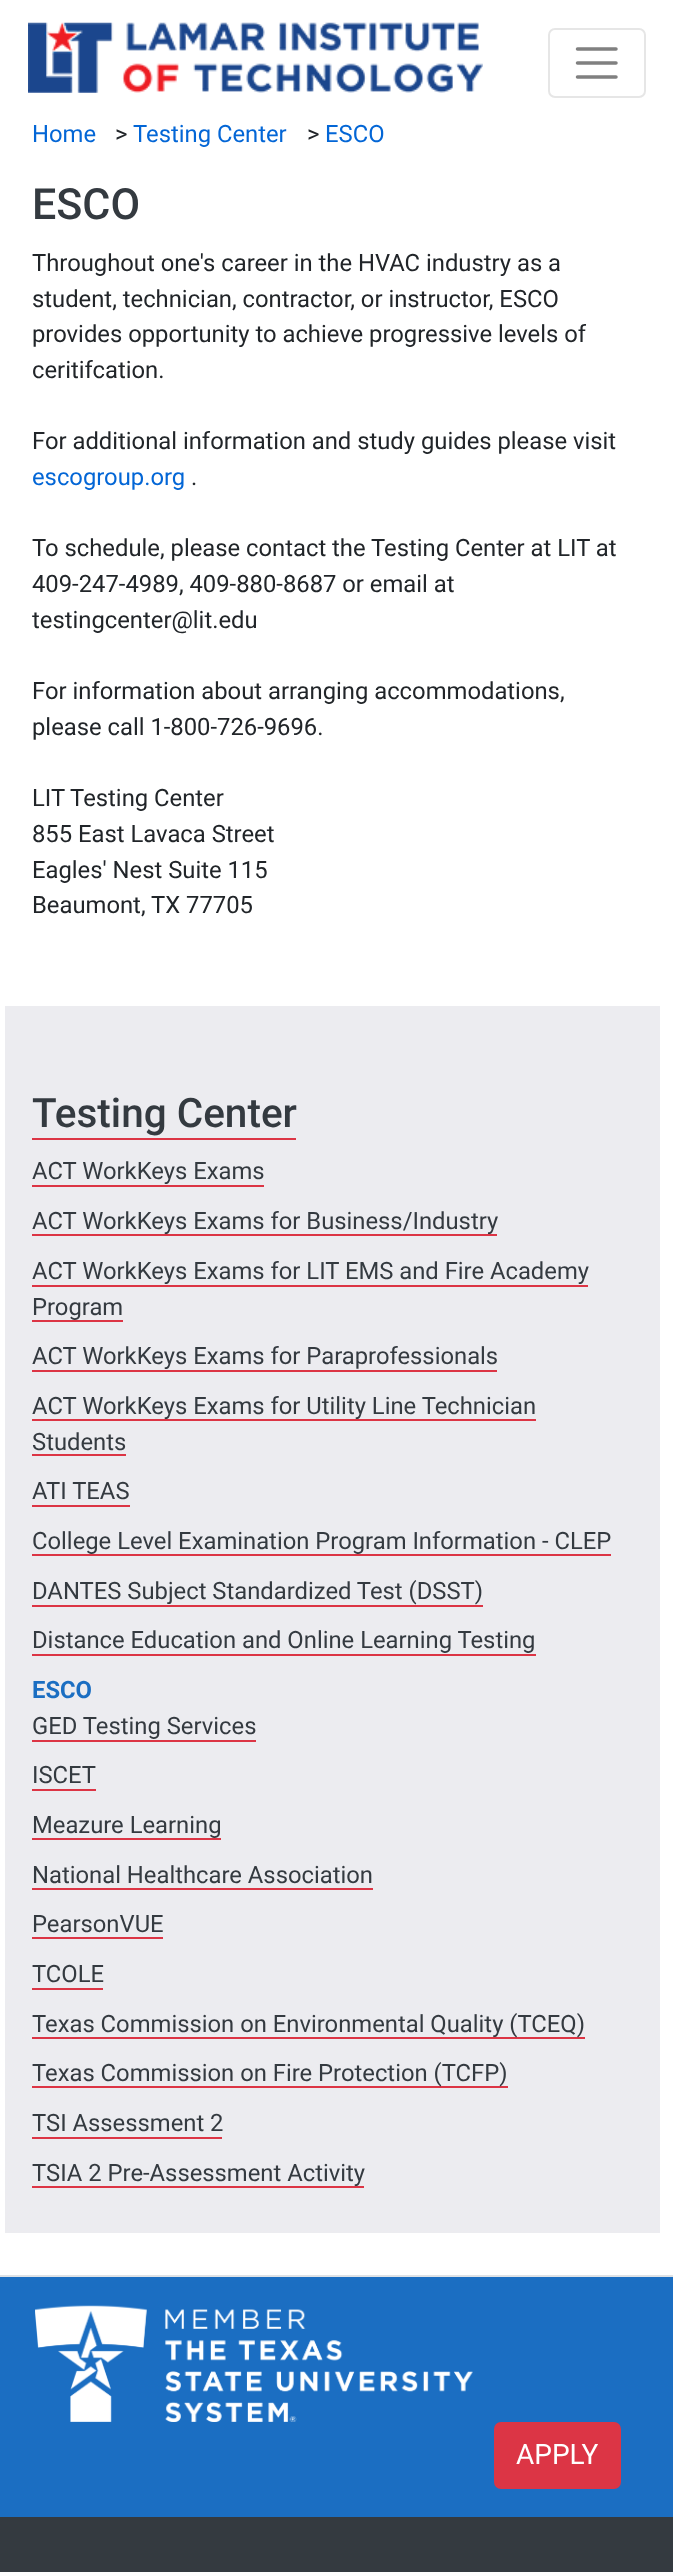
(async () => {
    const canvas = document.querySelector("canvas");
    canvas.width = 673;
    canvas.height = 2572;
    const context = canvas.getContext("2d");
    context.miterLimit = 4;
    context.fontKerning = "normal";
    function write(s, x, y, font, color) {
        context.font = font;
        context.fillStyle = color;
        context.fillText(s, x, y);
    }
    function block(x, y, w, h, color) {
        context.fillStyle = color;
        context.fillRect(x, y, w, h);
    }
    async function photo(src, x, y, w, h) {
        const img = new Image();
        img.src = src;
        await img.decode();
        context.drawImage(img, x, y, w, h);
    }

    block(0, 0, 673, 2572, "rgb(255, 255, 255)");
    await photo("media/1.png", 28, 22, 455, 71);
    context.beginPath();
    context.roundRect(549, 29, 96, 68, 6);
    context.strokeStyle = "rgb(230, 230, 230)";
    context.lineWidth = 2;
    context.stroke();
    context.beginPath();
    context.moveTo(577.5, 49);
    context.lineTo(616, 49);
    context.moveTo(577.5, 63);
    context.lineTo(616, 63);
    context.moveTo(577.5, 77);
    context.lineTo(616, 77);
    context.strokeStyle = "rgb(128, 128, 128)";
    context.lineWidth = 3.5;
    context.lineCap = "round";
    context.stroke();
    write("Home", 32, 142, "23.8px Roboto", "rgb(3, 102, 214)");
    write(">", 115, 142, "23.8px Roboto", "rgb(33, 37, 41)");
    write("Testing Center", 133, 142, "23.8px Roboto", "rgb(3, 102, 214)");
    write(">", 307, 142, "23.8px Roboto", "rgb(33, 37, 41)");
    write("ESCO", 325, 142, "23.8px Roboto", "rgb(3, 102, 214)");
    write("ESCO", 32, 219, "500 43px Roboto", "rgb(52, 58, 64)");
    write("Throughout one's career in the HVAC industry as a", 32, 271, "23.8px Roboto", "rgb(33, 37, 41)");
    write("student, technician, contractor, or instructor, ESCO", 32, 307, "23.8px Roboto", "rgb(33, 37, 41)");
    write("provides opportunity to achieve progressive levels of", 32, 342, "23.8px Roboto", "rgb(33, 37, 41)");
    write("ceritifcation.", 32, 378, "23.8px Roboto", "rgb(33, 37, 41)");
    write("For additional information and study guides please visit", 32, 449, "23.8px Roboto", "rgb(33, 37, 41)");
    write("escogroup.org", 32, 485, "23.8px Roboto", "rgb(3, 102, 214)");
    write(".", 191, 485, "23.8px Roboto", "rgb(33, 37, 41)");
    write("To schedule, please contact the Testing Center at LIT at", 32, 556, "23.8px Roboto", "rgb(33, 37, 41)");
    write("409-247-4989, 409-880-8687 or email at", 32, 592, "23.8px Roboto", "rgb(33, 37, 41)");
    write("testingcenter@lit.edu", 32, 628, "23.8px Roboto", "rgb(33, 37, 41)");
    write("For information about arranging accommodations,", 32, 699, "23.8px Roboto", "rgb(33, 37, 41)");
    write("please call 1-800-726-9696.", 32, 735, "23.8px Roboto", "rgb(33, 37, 41)");
    write("LIT Testing Center", 32, 806, "23.8px Roboto", "rgb(33, 37, 41)");
    write("855 East Lavaca Street", 32, 842, "23.8px Roboto", "rgb(33, 37, 41)");
    write("Eagles' Nest Suite 115", 32, 878, "23.8px Roboto", "rgb(33, 37, 41)");
    write("Beaumont, TX 77705", 32, 913, "23.8px Roboto", "rgb(33, 37, 41)");
    block(5, 1006, 655, 1227, "rgb(236, 236, 240)");
    write("Testing Center", 32, 1127, "500 40.5px Roboto", "rgb(52, 58, 64)");
    block(32, 1138, 264, 2, "rgb(220, 53, 69)");
    write("ACT WorkKeys Exams", 32, 1179, "23.8px Roboto", "rgb(52, 58, 64)");
    block(32, 1185, 232, 2, "rgb(220, 53, 69)");
    block(32, 1234, 465, 2, "rgb(220, 53, 69)");
    write("ACT WorkKeys Exams for Business/Industry", 32, 1229, "23.8px Roboto", "rgb(52, 58, 64)");
    write("ACT WorkKeys Exams for LIT EMS and Fire Academy", 32, 1279, "23.8px Roboto", "rgb(52, 58, 64)");
    block(32, 1285, 556, 2, "rgb(220, 53, 69)");
    write("Program", 32, 1315, "23.8px Roboto", "rgb(52, 58, 64)");
    block(32, 1320, 91, 2, "rgb(220, 53, 69)");
    write("ACT WorkKeys Exams for Paraprofessionals", 32, 1364, "23.8px Roboto", "rgb(52, 58, 64)");
    block(32, 1370, 465, 2, "rgb(220, 53, 69)");
    block(32, 1419, 504, 2, "rgb(220, 53, 69)");
    write("ACT WorkKeys Exams for Utility Line Technician", 32, 1414, "23.8px Roboto", "rgb(52, 58, 64)");
    write("Students", 32, 1450, "23.8px Roboto", "rgb(52, 58, 64)");
    block(32, 1454, 94, 2, "rgb(220, 53, 69)");
    write("ATI TEAS", 32, 1499, "23.8px Roboto", "rgb(52, 58, 64)");
    block(32, 1505, 98, 2, "rgb(220, 53, 69)");
    write("College Level Examination Program Information - CLEP", 32, 1549, "23.8px Roboto", "rgb(52, 58, 64)");
    block(32, 1554, 579, 2, "rgb(220, 53, 69)");
    write("DANTES Subject Standardized Test (DSST)", 32, 1599, "23.8px Roboto", "rgb(52, 58, 64)");
    block(32, 1605, 451, 2, "rgb(220, 53, 69)");
    write("Distance Education and Online Learning Testing", 32, 1648, "23.8px Roboto", "rgb(52, 58, 64)");
    block(32, 1654, 504, 2, "rgb(220, 53, 69)");
    write("ESCO", 32, 1698, "bold 23.8px Roboto", "rgb(27, 110, 194)");
    write("GED Testing Services", 32, 1734, "23.8px Roboto", "rgb(52, 58, 64)");
    block(32, 1740, 224, 2, "rgb(220, 53, 69)");
    write("ISCET", 32, 1783, "23.8px Roboto", "rgb(52, 58, 64)");
    block(32, 1789, 64, 2, "rgb(220, 53, 69)");
    write("Meazure Learning", 32, 1833, "23.8px Roboto", "rgb(52, 58, 64)");
    block(32, 1838, 189, 2, "rgb(220, 53, 69)");
    write("National Healthcare Association", 32, 1883, "23.8px Roboto", "rgb(52, 58, 64)");
    block(32, 1888, 341, 2, "rgb(220, 53, 69)");
    write("PearsonVUE", 32, 1932, "23.8px Roboto", "rgb(52, 58, 64)");
    block(32, 1937, 131, 2, "rgb(220, 53, 69)");
    write("TCOLE", 32, 1982, "23.8px Roboto", "rgb(52, 58, 64)");
    block(32, 1988, 71, 2, "rgb(220, 53, 69)");
    block(32, 2037, 553, 2, "rgb(220, 53, 69)");
    write("Texas Commission on Environmental Quality (TCEQ)", 32, 2032, "23.8px Roboto", "rgb(52, 58, 64)");
    block(32, 2086, 476, 2, "rgb(220, 53, 69)");
    write("Texas Commission on Fire Protection (TCFP)", 32, 2081, "23.8px Roboto", "rgb(52, 58, 64)");
    write("TSI Assessment 2", 32, 2131, "23.8px Roboto", "rgb(52, 58, 64)");
    block(32, 2137, 190, 2, "rgb(220, 53, 69)");
    block(32, 2186, 332, 2, "rgb(220, 53, 69)");
    write("TSIA 2 Pre-Assessment Activity", 32, 2181, "23.8px Roboto", "rgb(52, 58, 64)");
    block(0, 2275, 673, 2, "rgb(222, 226, 230)");
    block(0, 2277, 673, 240, "rgb(27, 110, 194)");
    await photo("media/2.png", 35, 2305, 438, 117);
    context.fillStyle = "rgb(220, 53, 69)";
    context.beginPath();
    context.roundRect(495, 2423, 125, 65, 6);
    context.fill();
    context.strokeStyle = "rgb(220, 53, 69)";
    context.lineWidth = 2;
    context.stroke();
    write("APPLY", 516, 2464, "28px Roboto", "rgb(255, 255, 255)");
    block(0, 2517, 673, 55, "rgb(52, 58, 64)");
})();
